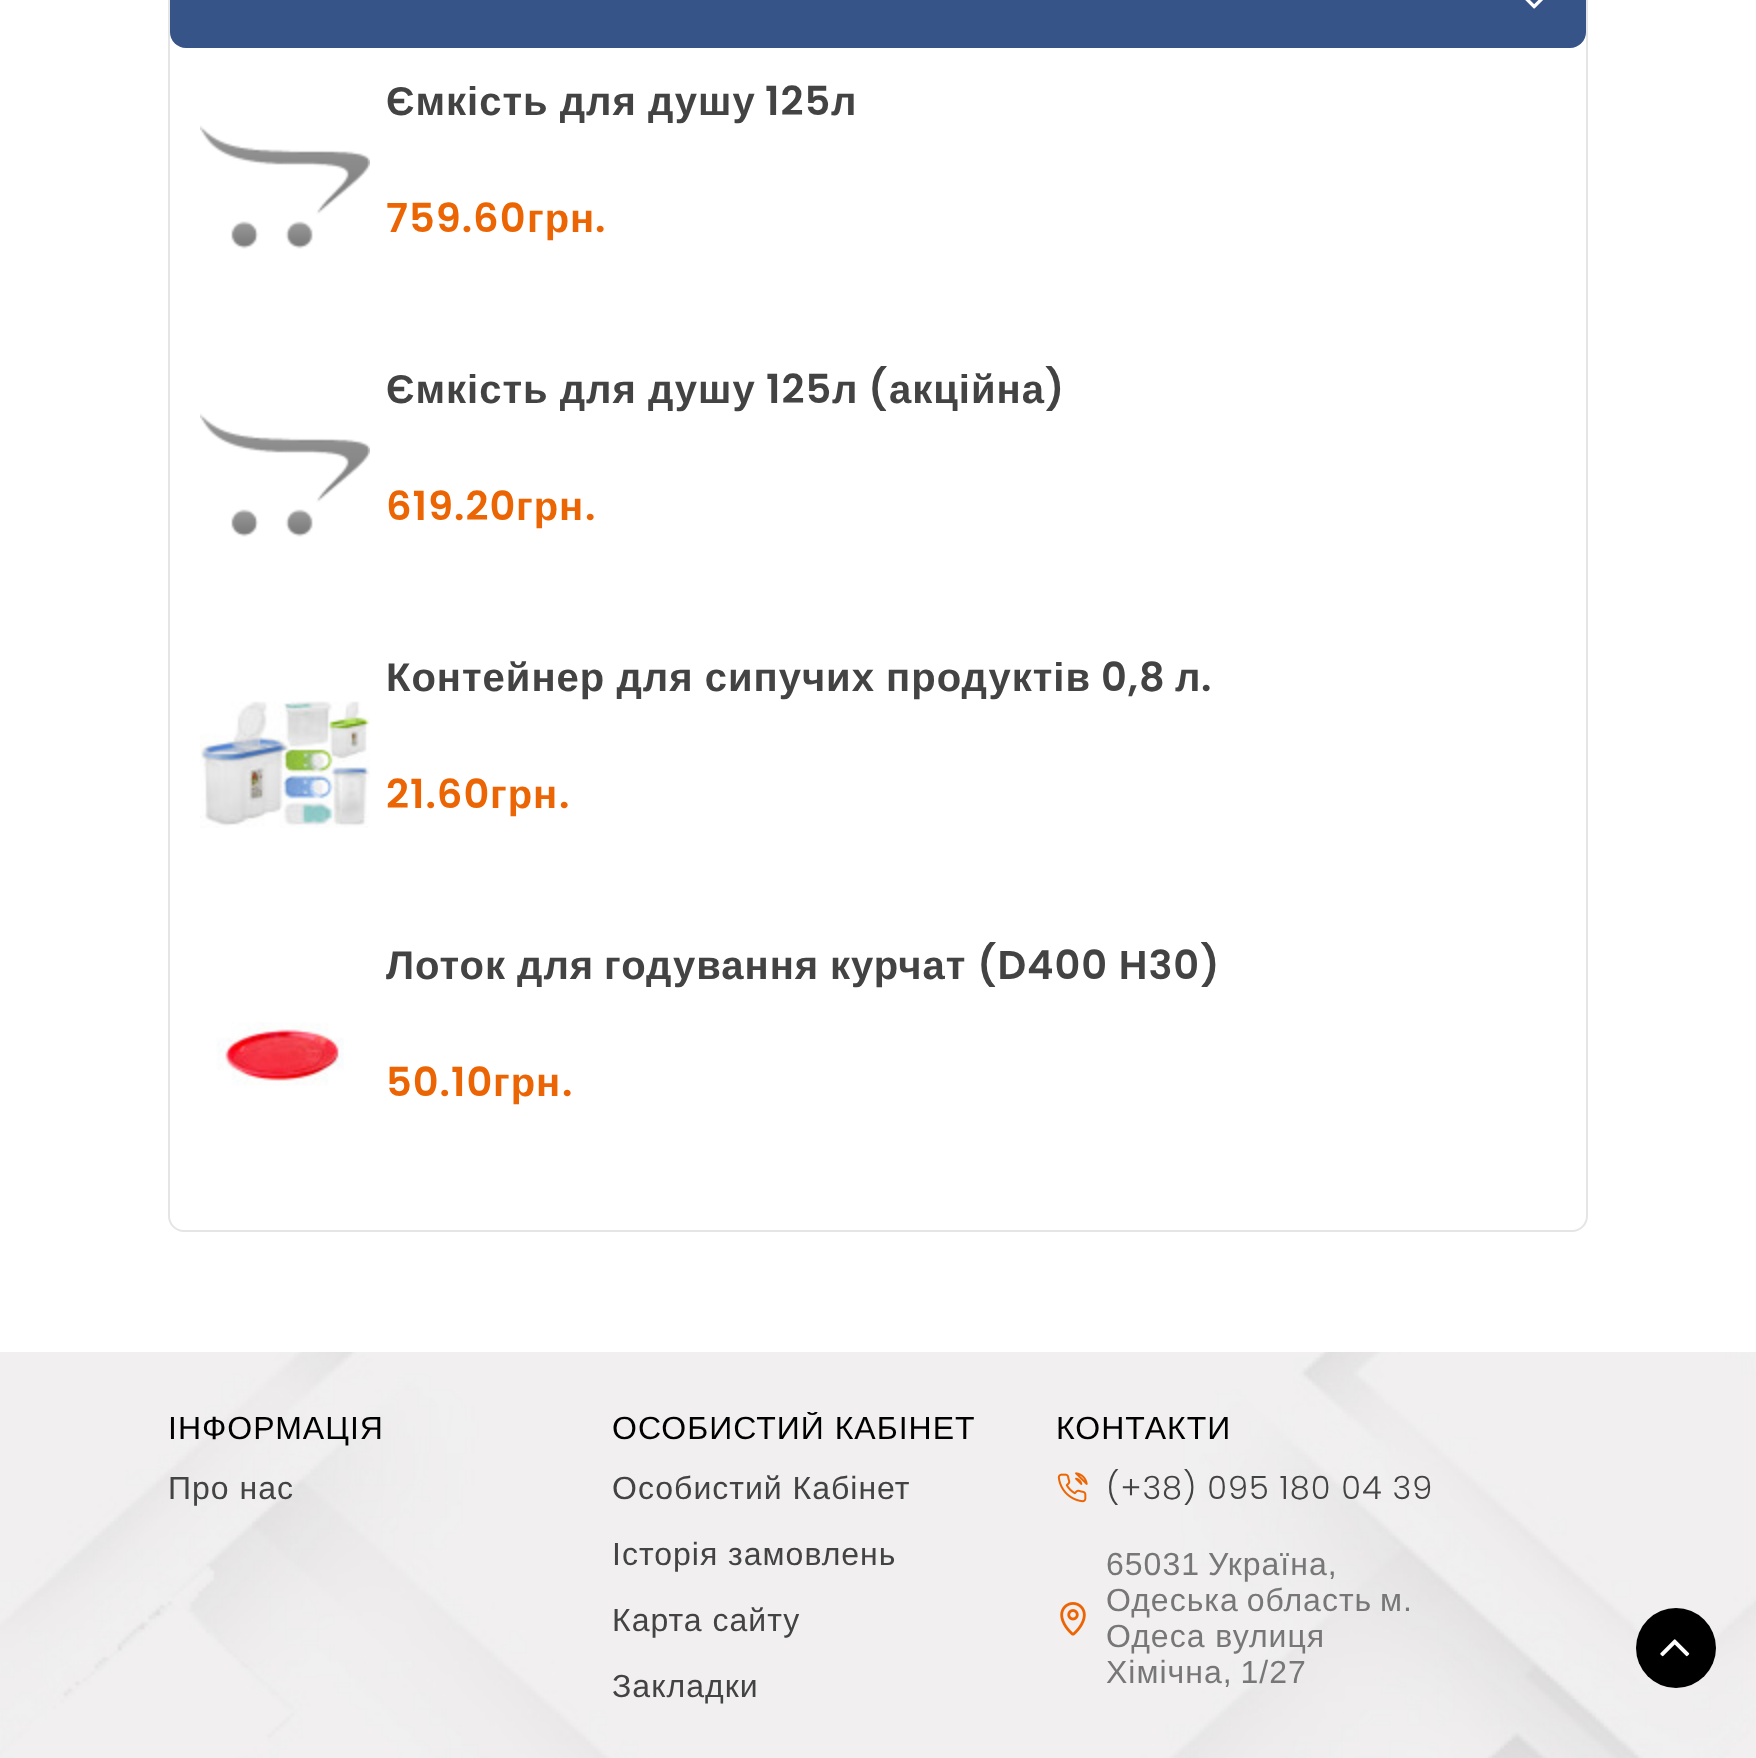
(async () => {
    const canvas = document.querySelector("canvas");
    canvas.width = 1756;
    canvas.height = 1758;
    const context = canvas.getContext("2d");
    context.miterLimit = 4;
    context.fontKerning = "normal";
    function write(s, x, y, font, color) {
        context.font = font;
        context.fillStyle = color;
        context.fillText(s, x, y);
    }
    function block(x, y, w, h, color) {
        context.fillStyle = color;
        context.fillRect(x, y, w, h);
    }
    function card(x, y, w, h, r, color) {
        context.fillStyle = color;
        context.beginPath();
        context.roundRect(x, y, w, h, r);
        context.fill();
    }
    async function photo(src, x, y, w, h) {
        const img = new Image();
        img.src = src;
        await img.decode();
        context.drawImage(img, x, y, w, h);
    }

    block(0, 0, 1756, 1758, "rgb(255, 255, 255)");
    context.beginPath();
    context.roundRect(169, -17, 1418, 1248, 15);
    context.strokeStyle = "rgb(229, 229, 229)";
    context.lineWidth = 2;
    context.stroke();
    card(170, -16, 1416, 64, 16, "rgb(54, 84, 135)");
    await photo("media/1.png", 1525, 0, 18, 9);
    await photo("media/2.png", 200, 125, 170, 124);
    context.letterSpacing = "1px";
    context.wordSpacing = "-1px";
    write("Ємкість для душу", 386, 115, "bold 40px Liberation Sans", "rgb(67, 67, 67)");
    context.wordSpacing = "0px";
    write("125", 765, 115, "600 40px Poppins", "rgb(67, 67, 67)");
    write("л", 831, 115, "bold 40px Liberation Sans", "rgb(67, 67, 67)");
    write("759.60", 386, 232, "600 40px Poppins", "rgb(236, 101, 4)");
    write("грн", 527, 232, "bold 40px Liberation Sans", "rgb(236, 101, 4)");
    write(".", 595, 232, "600 40px Poppins", "rgb(236, 101, 4)");
    await photo("media/2.png", 200, 413, 170, 124);
    context.wordSpacing = "-1px";
    write("Ємкість для душу", 386, 403, "bold 40px Liberation Sans", "rgb(67, 67, 67)");
    context.wordSpacing = "0px";
    write("125", 766, 403, "600 40px Poppins", "rgb(67, 67, 67)");
    write("л", 832, 403, "bold 40px Liberation Sans", "rgb(67, 67, 67)");
    write("(", 868, 403, "600 40px Poppins", "rgb(67, 67, 67)");
    write("акційна", 889, 403, "bold 40px Liberation Sans", "rgb(67, 67, 67)");
    write(")", 1045, 403, "600 40px Poppins", "rgb(67, 67, 67)");
    write("619.20", 386, 520, "600 40px Poppins", "rgb(236, 101, 4)");
    write("грн", 516, 520, "bold 40px Liberation Sans", "rgb(236, 101, 4)");
    write(".", 585, 520, "600 40px Poppins", "rgb(236, 101, 4)");
    await photo("media/3.png", 200, 701, 170, 127);
    context.wordSpacing = "-1px";
    write("Контейнер для сипучих продуктів", 386, 691, "bold 40px Liberation Sans", "rgb(67, 67, 67)");
    context.wordSpacing = "0px";
    write("0,8", 1101, 691, "600 40px Poppins", "rgb(67, 67, 67)");
    write("л", 1175, 691, "bold 40px Liberation Sans", "rgb(67, 67, 67)");
    write(".", 1201, 691, "600 40px Poppins", "rgb(67, 67, 67)");
    write("21.60", 386, 808, "600 40px Poppins", "rgb(236, 101, 4)");
    write("грн", 490, 808, "bold 40px Liberation Sans", "rgb(236, 101, 4)");
    write(".", 559, 808, "600 40px Poppins", "rgb(236, 101, 4)");
    await photo("media/4.png", 216, 1022, 128, 64);
    write("Лоток", 386, 979, "bold 40px Liberation Sans", "rgb(67, 67, 67)");
    write("для", 517, 979, "bold 40px Liberation Sans", "rgb(67, 67, 67)");
    write("годування", 604, 979, "bold 40px Liberation Sans", "rgb(67, 67, 67)");
    write("курчат", 830, 979, "bold 40px Liberation Sans", "rgb(67, 67, 67)");
    write("(D400 H30)", 977, 979, "600 40px Poppins", "rgb(67, 67, 67)");
    write("50.10", 386, 1096, "600 40px Poppins", "rgb(236, 101, 4)");
    write("грн", 493, 1096, "bold 40px Liberation Sans", "rgb(236, 101, 4)");
    write(".", 562, 1096, "600 40px Poppins", "rgb(236, 101, 4)");
    await photo("media/5.png", 0, 1352, 1756, 406);
    write("ІНФОРМАЦІЯ", 168, 1439, "32px Liberation Sans", "rgb(0, 0, 0)");
    write("Про нас", 168, 1499, "32px Liberation Sans", "rgb(67, 67, 67)");
    context.save();
    context.beginPath();
    context.rect(582, 1412, 444, 322);
    context.clip();
    write("ОСОБИСТИЙ КАБІНЕТ", 612, 1439, "32px Liberation Sans", "rgb(0, 0, 0)");
    context.restore();
    write("Особистий Кабінет", 612, 1499, "32px Liberation Sans", "rgb(67, 67, 67)");
    write("Історія замовлень", 612, 1565, "32px Liberation Sans", "rgb(67, 67, 67)");
    write("Карта сайту", 612, 1631, "32px Liberation Sans", "rgb(67, 67, 67)");
    write("Закладки", 612, 1697, "32px Liberation Sans", "rgb(67, 67, 67)");
    write("КОНТАКТИ", 1056, 1439, "32px Liberation Sans", "rgb(0, 0, 0)");
    await photo("media/6.png", 1057, 1472, 31, 31);
    write("(+38) 095 180 04 39", 1106, 1499, "300 32px Poppins", "rgb(67, 67, 67)");
    await photo("media/7.png", 1060, 1602, 26, 34);
    context.wordSpacing = "-2px";
    write("65031 Україна,", 1106, 1575, "32px Liberation Sans", "rgb(119, 119, 119)");
    write("Одеська область м.", 1106, 1611, "32px Liberation Sans", "rgb(119, 119, 119)");
    context.wordSpacing = "0px";
    write("Одеса вулиця", 1106, 1647, "32px Liberation Sans", "rgb(119, 119, 119)");
    context.wordSpacing = "-2px";
    write("Хімічна, 1/27", 1106, 1683, "32px Liberation Sans", "rgb(119, 119, 119)");
    context.fillStyle = "rgb(0, 0, 0)";
    context.beginPath();
    context.arc(1676, 1648, 40, 0, Math.PI * 2);
    context.fill();
    await photo("media/8.png", 1660, 1639, 30, 18);
})();
